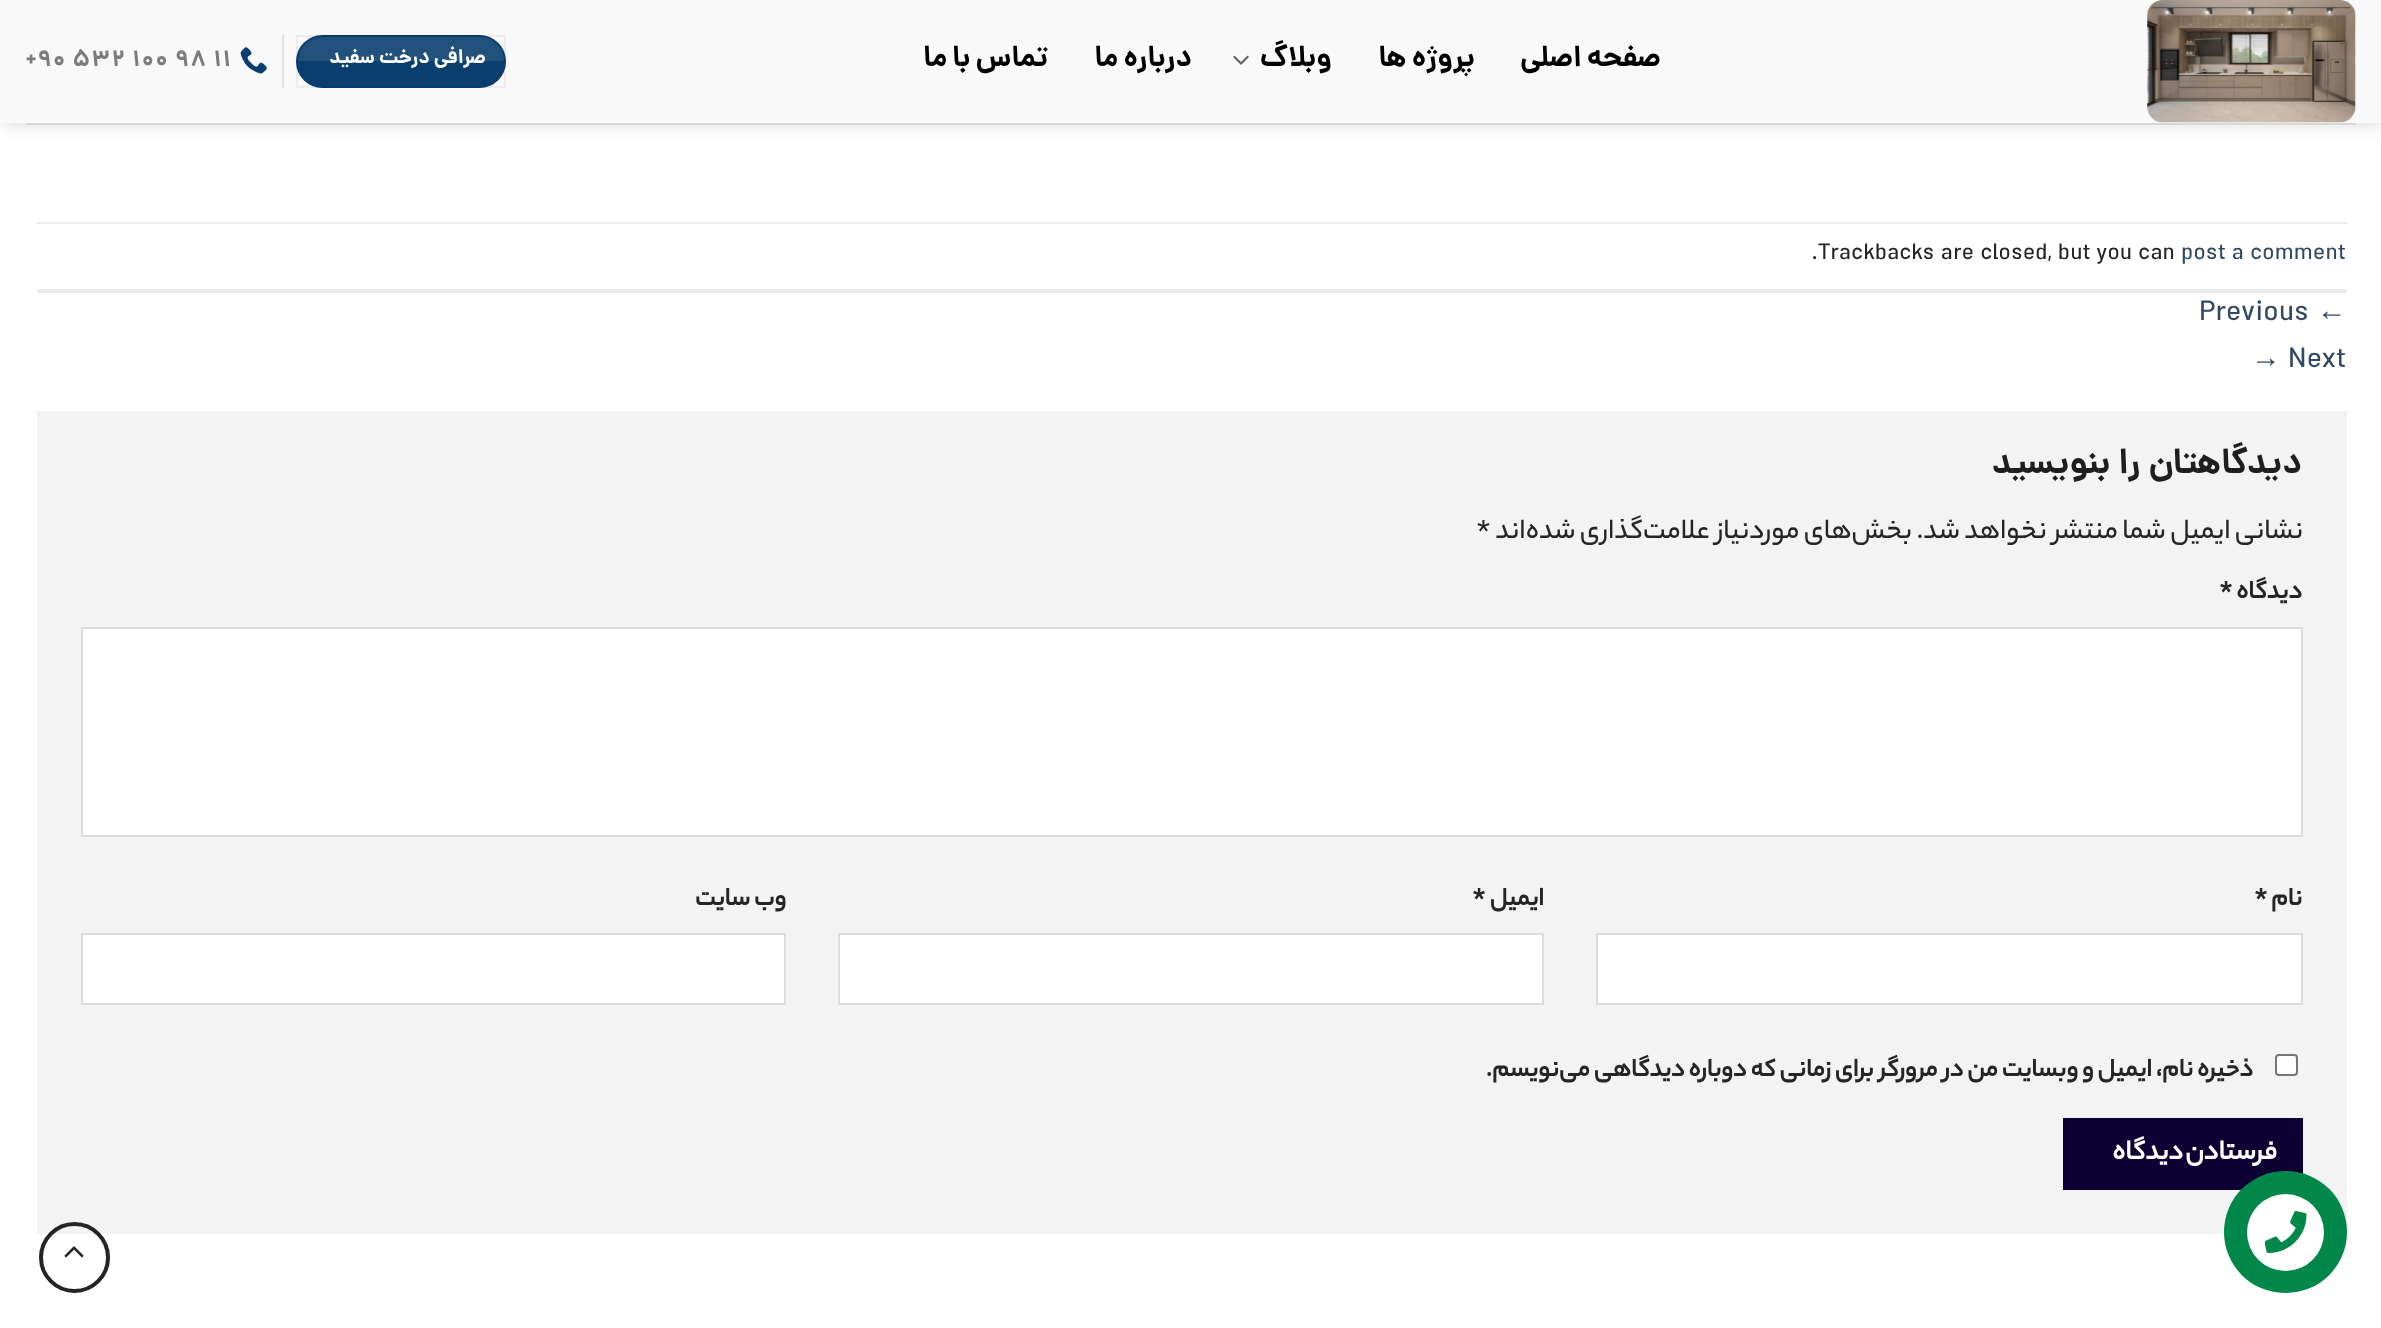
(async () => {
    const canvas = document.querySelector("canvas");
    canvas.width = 2381;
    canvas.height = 1328;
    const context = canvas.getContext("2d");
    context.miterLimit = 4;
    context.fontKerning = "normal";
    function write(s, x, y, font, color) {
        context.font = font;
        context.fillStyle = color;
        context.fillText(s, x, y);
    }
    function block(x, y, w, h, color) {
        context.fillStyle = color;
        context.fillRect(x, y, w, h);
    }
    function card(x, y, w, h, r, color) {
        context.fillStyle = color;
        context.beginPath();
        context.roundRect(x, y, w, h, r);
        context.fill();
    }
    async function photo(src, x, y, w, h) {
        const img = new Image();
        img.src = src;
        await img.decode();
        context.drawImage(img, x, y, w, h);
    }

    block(0, 0, 2381, 1328, "rgb(255, 255, 255)");
    context.fillStyle = "rgba(0, 0, 0, 0.15)";
    context.filter = "blur(9px)";
    context.beginPath();
    context.rect(2, 2, 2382, 122);
    context.fill();
    context.filter = "none";
    block(0, 0, 2381, 123, "rgb(249, 249, 249)");
    await photo("media/1.png", 2147, 0, 209, 123);
    context.letterSpacing = "0.5px";
    context.wordSpacing = "-2px";
    context.direction = "rtl";
    write("صفحه اصلی", 1661, 66, "bold 29.4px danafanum", "rgb(0, 0, 0)");
    write("پروژه ها", 1475, 66, "bold 29.4px danafanum", "rgb(0, 0, 0)");
    context.wordSpacing = "0px";
    write("وبلاگ", 1332, 66, "bold 29.4px danafanum", "rgb(0, 0, 0)");
    await photo("media/2.png", 1233, 55, 16, 10);
    context.wordSpacing = "-2px";
    write("درباره ما", 1192, 66, "bold 29.4px danafanum", "rgb(0, 0, 0)");
    write("تماس با ما", 1048, 66, "bold 29.4px danafanum", "rgb(0, 0, 0)");
    card(296, 35, 210, 53, 26.5, "rgb(10, 62, 110)");
    context.strokeStyle = "rgba(0, 0, 0, 0.05)";
    context.lineWidth = 2;
    context.strokeRect(297, 36, 208, 51);
    context.save();
    context.beginPath();
    context.roundRect(298, 37, 206, 49, 24.5);
    context.clip();
    block(298, 37, 206, 24, "rgba(255, 255, 255, 0.1)");
    context.restore();
    context.letterSpacing = "0.6px";
    context.wordSpacing = "-1px";
    write("صرافی درخت سفید", 486, 63, "bold 20px danafanum", "rgb(255, 255, 255)");
    block(282, 35, 2, 53, "rgb(224, 224, 224)");
    await photo("media/3.png", 240, 47, 27, 27);
    context.letterSpacing = "0.5px";
    context.wordSpacing = "0px";
    context.direction = "ltr";
    write("+90 532 100 98 11", 26, 66, "bold 23.5px danafanum", "rgb(124, 124, 124)");
    block(26, 123, 2330, 2, "rgba(38, 37, 37, 0.1)");
    block(37, 222, 2310, 2, "rgb(236, 236, 236)");
    block(37, 289, 2310, 4, "rgb(236, 236, 236)");
    context.letterSpacing = "0px";
    write("post a comment", 2181, 259, "23.5px danafanum", "rgb(51, 72, 98)");
    write("Trackbacks are closed, but you can", 1818, 259, "23.5px danafanum", "rgb(38, 37, 37)");
    write(".", 1811, 259, "23.5px danafanum", "rgb(38, 37, 37)");
    write("←", 2317, 320, "29.4px Liberation Sans", "rgb(51, 72, 98)");
    write("Previous", 2199, 320, "29.4px danafanum", "rgb(51, 72, 98)");
    write("Next", 2288, 367, "29.4px danafanum", "rgb(51, 72, 98)");
    write("→", 2251, 367, "29.4px Liberation Sans", "rgb(51, 72, 98)");
    block(37, 411, 2310, 823, "rgb(243, 243, 243)");
    context.direction = "rtl";
    write("دیدگاهتان را بنویسید", 2302, 473, "bold 35.25px danafanum", "rgb(30, 30, 30)");
    write("نشانی ایمیل شما منتشر نخواهد شد.", 2303, 538, "500 29.4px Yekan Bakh", "rgb(38, 37, 37)");
    write("بخش‌های موردنیاز علامت‌گذاری شده‌اند", 1912, 538, "500 29.4px Yekan Bakh", "rgb(38, 37, 37)");
    context.direction = "ltr";
    write("*", 1476, 538, "500 29.4px Yekan Bakh", "rgb(38, 37, 37)");
    context.direction = "rtl";
    write("دیدگاه", 2302, 598, "bold 26.45px Yekan Bakh", "rgb(38, 37, 37)");
    context.direction = "ltr";
    write("*", 2219, 598, "bold 26.45px Yekan Bakh", "rgb(38, 37, 37)");
    context.fillStyle = "rgb(255, 255, 255)";
    context.beginPath();
    context.rect(82, 628, 2220, 208);
    context.fill();
    context.strokeStyle = "rgb(221, 221, 221)";
    context.stroke();
    context.direction = "rtl";
    write("نام", 2302, 905, "bold 26.45px Yekan Bakh", "rgb(38, 37, 37)");
    context.direction = "ltr";
    write("*", 2254, 905, "bold 26.45px Yekan Bakh", "rgb(38, 37, 37)");
    context.fillStyle = "rgb(255, 255, 255)";
    context.beginPath();
    context.rect(1597, 934, 705, 70);
    context.fill();
    context.stroke();
    context.direction = "rtl";
    write("ایمیل", 1544, 905, "bold 26.45px Yekan Bakh", "rgb(38, 37, 37)");
    context.direction = "ltr";
    write("*", 1472, 905, "bold 26.45px Yekan Bakh", "rgb(38, 37, 37)");
    context.fillStyle = "rgb(255, 255, 255)";
    context.beginPath();
    context.rect(839, 934, 704, 70);
    context.fill();
    context.stroke();
    context.direction = "rtl";
    write("وب‌ سایت", 786, 905, "bold 26.45px Yekan Bakh", "rgb(38, 37, 37)");
    context.fillStyle = "rgb(255, 255, 255)";
    context.beginPath();
    context.rect(82, 934, 703, 70);
    context.fill();
    context.stroke();
    context.beginPath();
    context.roundRect(2276, 1055, 21, 20, 3);
    context.fill();
    context.strokeStyle = "rgb(118, 118, 118)";
    context.stroke();
    write("ذخیره نام، ایمیل و وبسایت من در مرورگر برای زمانی که دوباره دیدگاهی می‌نویسم.", 2253, 1076, "bold 26.45px Yekan Bakh", "rgb(38, 37, 37)");
    context.fillStyle = "rgb(13, 1, 52)";
    context.beginPath();
    context.rect(2064, 1119, 238, 70);
    context.fill();
    context.strokeStyle = "rgb(12, 1, 49)";
    context.stroke();
    context.letterSpacing = "0.9px";
    context.wordSpacing = "-2px";
    write("فرستادن دیدگاه", 2277, 1159, "bold 28.5px Yekan Bakh", "rgb(255, 255, 255)");
    context.beginPath();
    context.arc(74.5, 1257.5, 33.5, 0, Math.PI * 2);
    context.strokeStyle = "rgb(38, 37, 37)";
    context.lineWidth = 4;
    context.stroke();
    await photo("media/4.png", 64, 1246, 20, 12);
    card(2224, 1171, 123, 122, 61, "rgb(0, 135, 73)");
    context.fillStyle = "rgb(255, 255, 255)";
    context.beginPath();
    context.arc(2285.5, 1232.5, 38.5, 0, Math.PI * 2);
    context.fill();
    await photo("media/5.png", 2265, 1211, 42, 42);
})();
